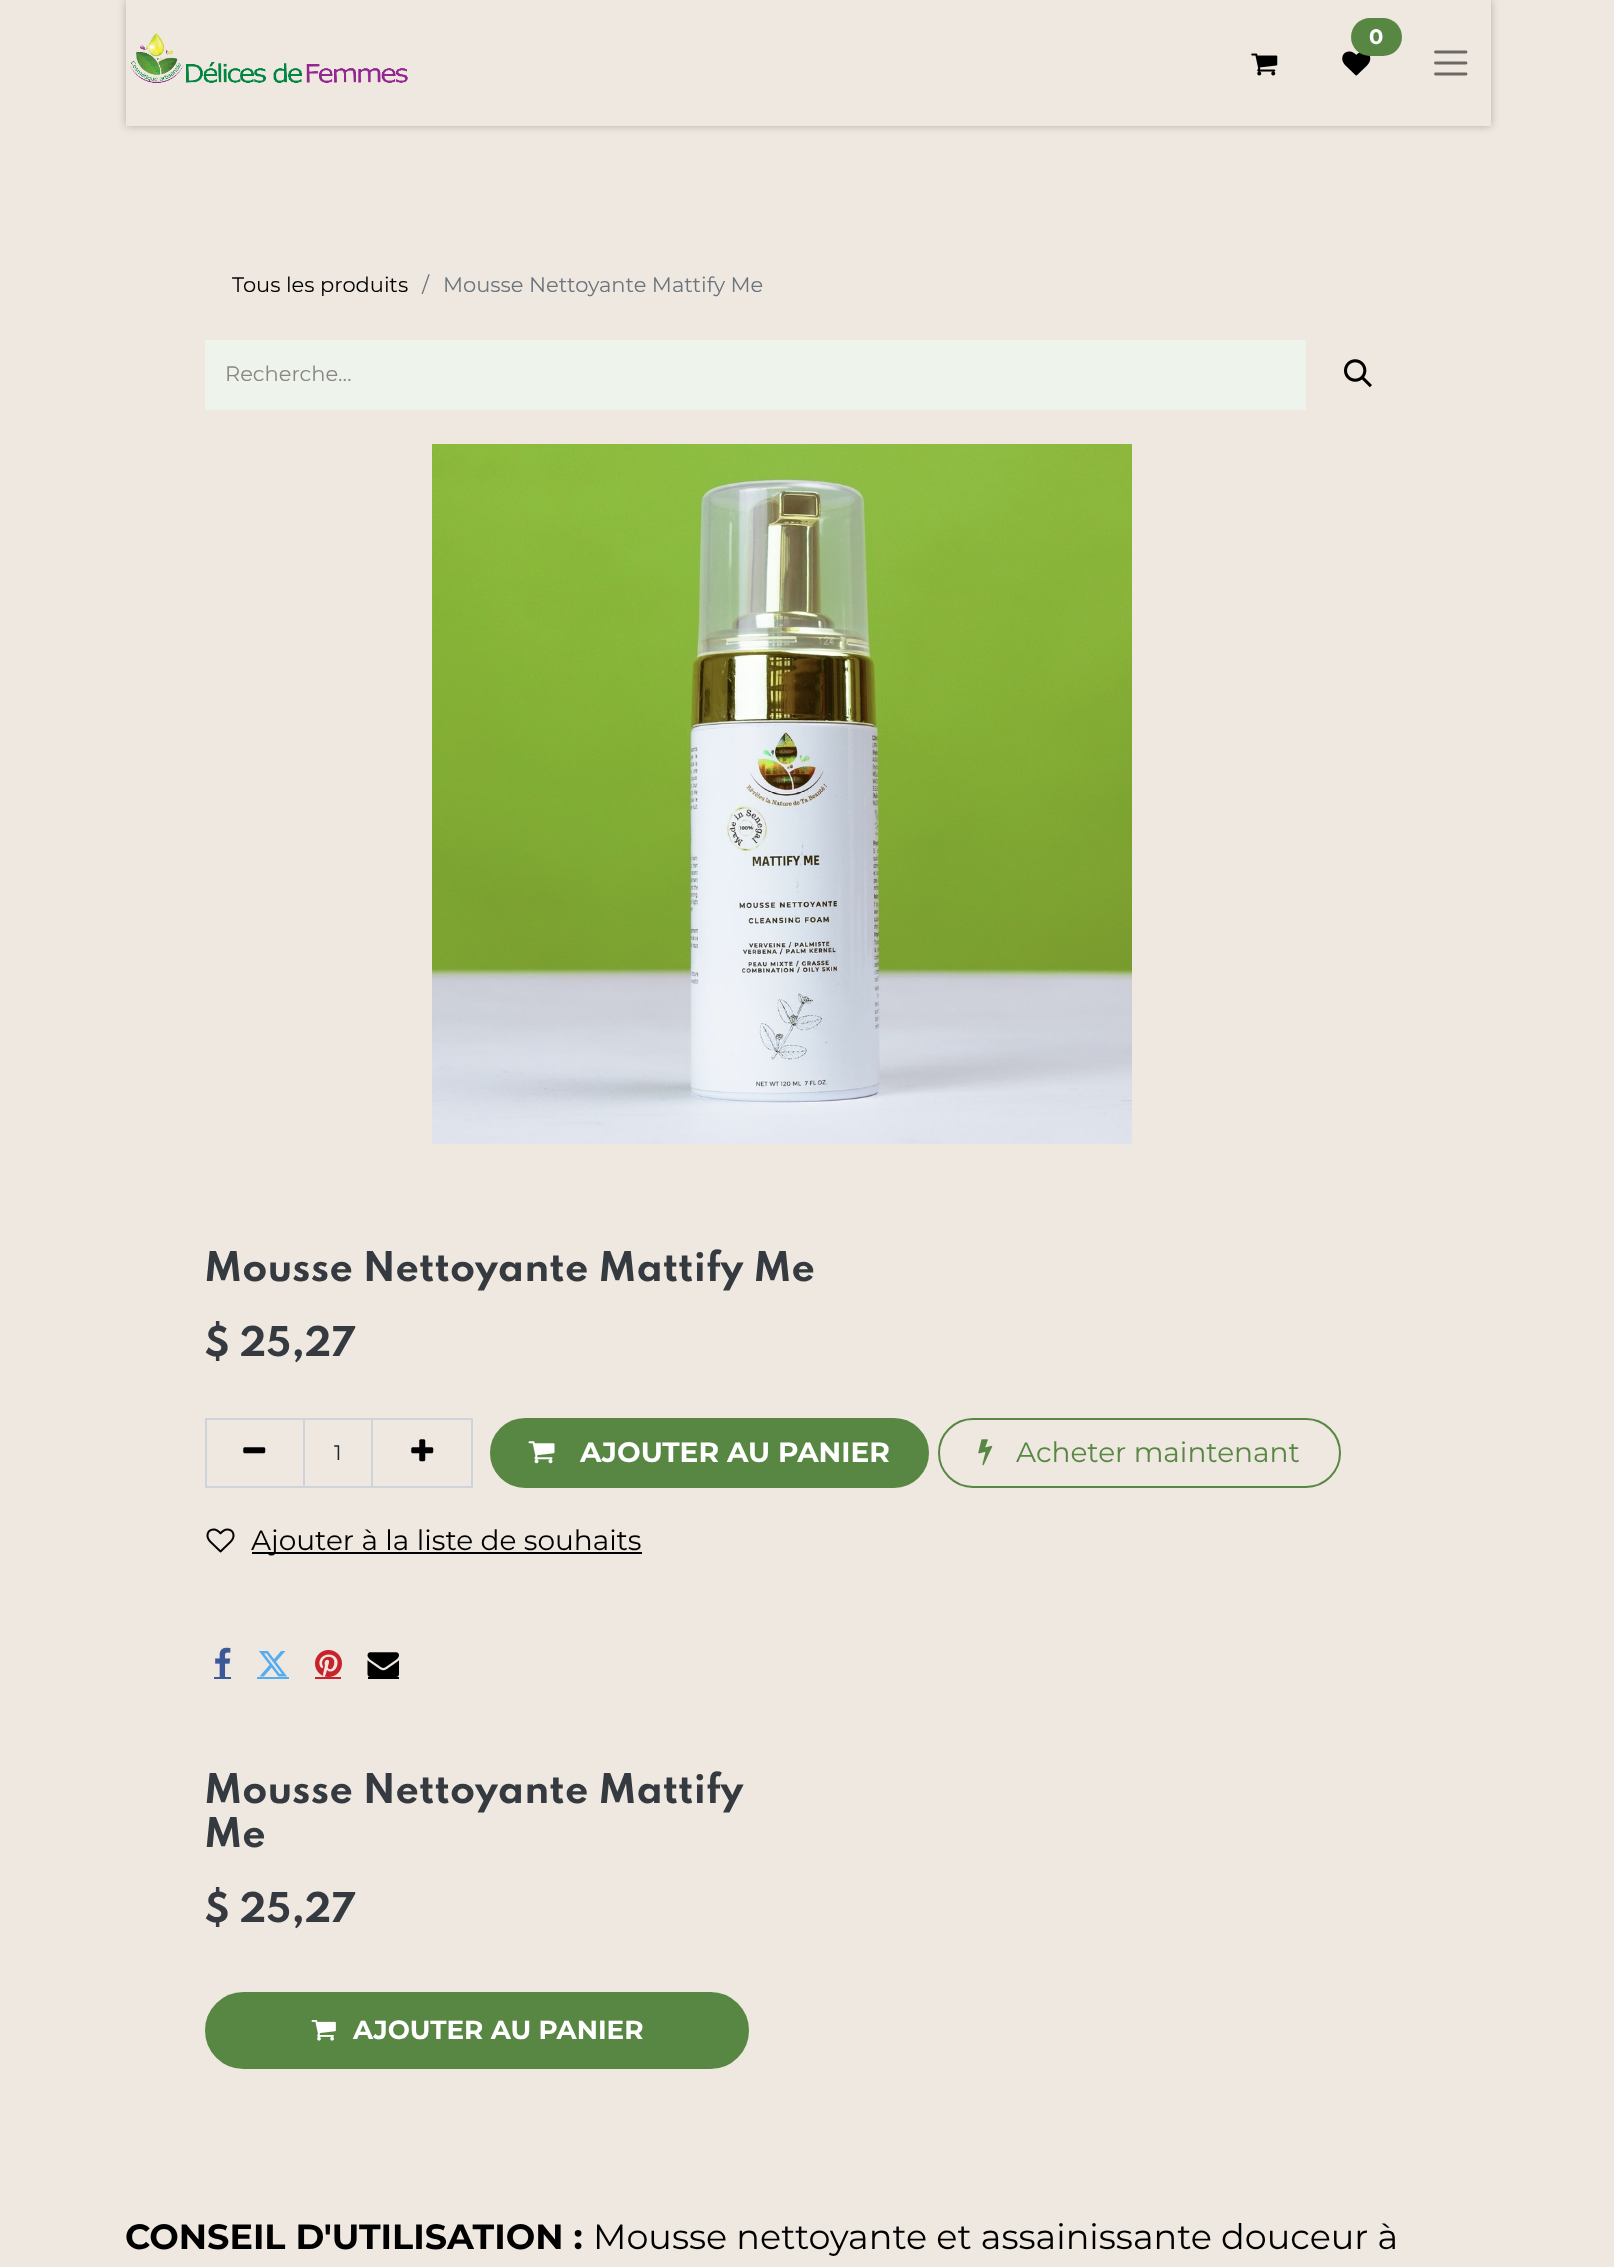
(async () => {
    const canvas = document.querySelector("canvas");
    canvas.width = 1614;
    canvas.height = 2267;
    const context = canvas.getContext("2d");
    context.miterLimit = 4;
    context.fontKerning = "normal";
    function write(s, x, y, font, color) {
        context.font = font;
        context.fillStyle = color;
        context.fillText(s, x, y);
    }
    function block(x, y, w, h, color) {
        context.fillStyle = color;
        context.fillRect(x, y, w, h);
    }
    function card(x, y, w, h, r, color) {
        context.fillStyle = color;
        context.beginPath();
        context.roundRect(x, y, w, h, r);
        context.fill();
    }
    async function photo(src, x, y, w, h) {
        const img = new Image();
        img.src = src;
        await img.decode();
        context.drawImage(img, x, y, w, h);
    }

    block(0, 0, 1614, 2267, "rgb(239, 232, 224)");
    context.save();
    context.beginPath();
    context.moveTo(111, 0);
    context.lineTo(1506, 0);
    context.lineTo(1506, 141);
    context.lineTo(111, 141);
    context.closePath();
    context.moveTo(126, 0);
    context.lineTo(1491, 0);
    context.lineTo(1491, 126);
    context.lineTo(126, 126);
    context.closePath();
    context.clip("evenodd");
    context.fillStyle = "rgba(0, 0, 0, 0.25)";
    context.filter = "blur(4.5px)";
    context.beginPath();
    context.rect(126, 0, 1365, 126);
    context.fill();
    context.filter = "none";
    context.restore();
    await photo("media/1.png", 130, 33, 278, 50);
    await photo("media/2.png", 1342, 51, 29, 25);
    card(1351, 18, 51, 38, 19, "rgb(88, 135, 68)");
    write("0", 1369, 44, "bold 21px Montserrat", "rgb(255, 255, 255)");
    await photo("media/3.png", 1251, 53, 27, 23);
    context.beginPath();
    context.moveTo(1435.5, 52);
    context.lineTo(1466, 52);
    context.moveTo(1435.5, 63);
    context.lineTo(1466, 63);
    context.moveTo(1435.5, 74);
    context.lineTo(1466, 74);
    context.strokeStyle = "rgb(108, 104, 101)";
    context.lineWidth = 2.8;
    context.lineCap = "round";
    context.stroke();
    write("Tous les produits", 232, 292, "21px Montserrat", "rgb(0, 0, 0)");
    write("/", 422, 292, "21px Montserrat", "rgb(108, 117, 125)");
    write("Mousse Nettoyante Mattify Me", 443, 292, "21px Montserrat", "rgb(108, 117, 125)");
    block(205, 340, 1101, 70, "rgb(238, 243, 236)");
    write("Recherche…", 225, 381, "21px Montserrat", "rgb(136, 135, 133)");
    await photo("media/4.png", 1344, 359, 28, 29);
    await photo("media/5.png", 432, 444, 700, 700);
    write("Mousse Nettoyante Mattify Me", 204, 1281, "bold 36.4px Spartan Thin", "rgb(52, 58, 64)");
    write("$ 25,27", 204, 1356, "bold 36.4px Spartan Thin", "rgb(52, 58, 64)");
    context.strokeStyle = "rgb(206, 212, 218)";
    context.lineWidth = 2;
    context.strokeRect(304, 1419, 68, 68);
    context.strokeRect(206, 1419, 98, 68);
    await photo("media/6.png", 243, 1447, 23, 7);
    write("1", 334, 1460, "21px Montserrat", "rgb(33, 37, 41)");
    context.strokeRect(372, 1419, 100, 68);
    await photo("media/7.png", 411, 1439, 23, 23);
    context.fillStyle = "rgb(88, 135, 68)";
    context.beginPath();
    context.roundRect(491, 1419, 437, 68, 34);
    context.fill();
    context.strokeStyle = "rgb(88, 135, 68)";
    context.stroke();
    await photo("media/8.png", 528, 1441, 27, 23);
    write("AJOUTER AU PANIER", 580, 1462, "bold 28px Montserrat", "rgb(255, 255, 255)");
    context.beginPath();
    context.roundRect(939, 1419, 401, 68, 34);
    context.stroke();
    await photo("media/9.png", 978, 1439, 15, 27);
    write("Acheter maintenant", 1016, 1462, "28px Montserrat", "rgb(88, 135, 68)");
    await photo("media/10.png", 206, 1528, 29, 25);
    block(252, 1552, 390, 2, "rgb(0, 0, 0)");
    write("Ajouter à la liste de souhaits", 251, 1550, "28px Montserrat", "rgb(0, 0, 0)");
    block(214, 1677, 17, 2, "rgb(59, 89, 153)");
    await photo("media/11.png", 215, 1647, 16, 30);
    block(257, 1677, 32, 2, "rgb(85, 172, 238)");
    await photo("media/12.png", 259, 1651, 28, 26);
    block(315, 1677, 26, 2, "rgb(200, 35, 44)");
    await photo("media/13.png", 315, 1650, 27, 27);
    block(368, 1677, 31, 2, "rgb(0, 0, 0)");
    await photo("media/14.png", 367, 1652, 32, 25);
    write("Mousse Nettoyante Mattify", 204, 1803, "bold 36.4px Spartan Thin", "rgb(52, 58, 64)");
    write("Me", 204, 1847, "bold 36.4px Spartan Thin", "rgb(52, 58, 64)");
    write("$ 25,27", 204, 1922, "bold 36.4px Spartan Thin", "rgb(52, 58, 64)");
    context.fillStyle = "rgb(88, 135, 68)";
    context.beginPath();
    context.roundRect(206, 1993, 542, 75, 37.5);
    context.fill();
    context.stroke();
    await photo("media/15.png", 311, 2020, 25, 21);
    write("AJOUTER AU PANIER", 353, 2039, "bold 26.25px Montserrat", "rgb(255, 255, 255)");
    write("CONSEIL D'UTILISATION :", 125, 2249, "bold 35px Montserrat", "rgb(0, 0, 0)");
    write("Mousse nettoyante et assainissante douceur à", 593, 2249, "35px Montserrat", "rgb(0, 0, 0)");
})();
